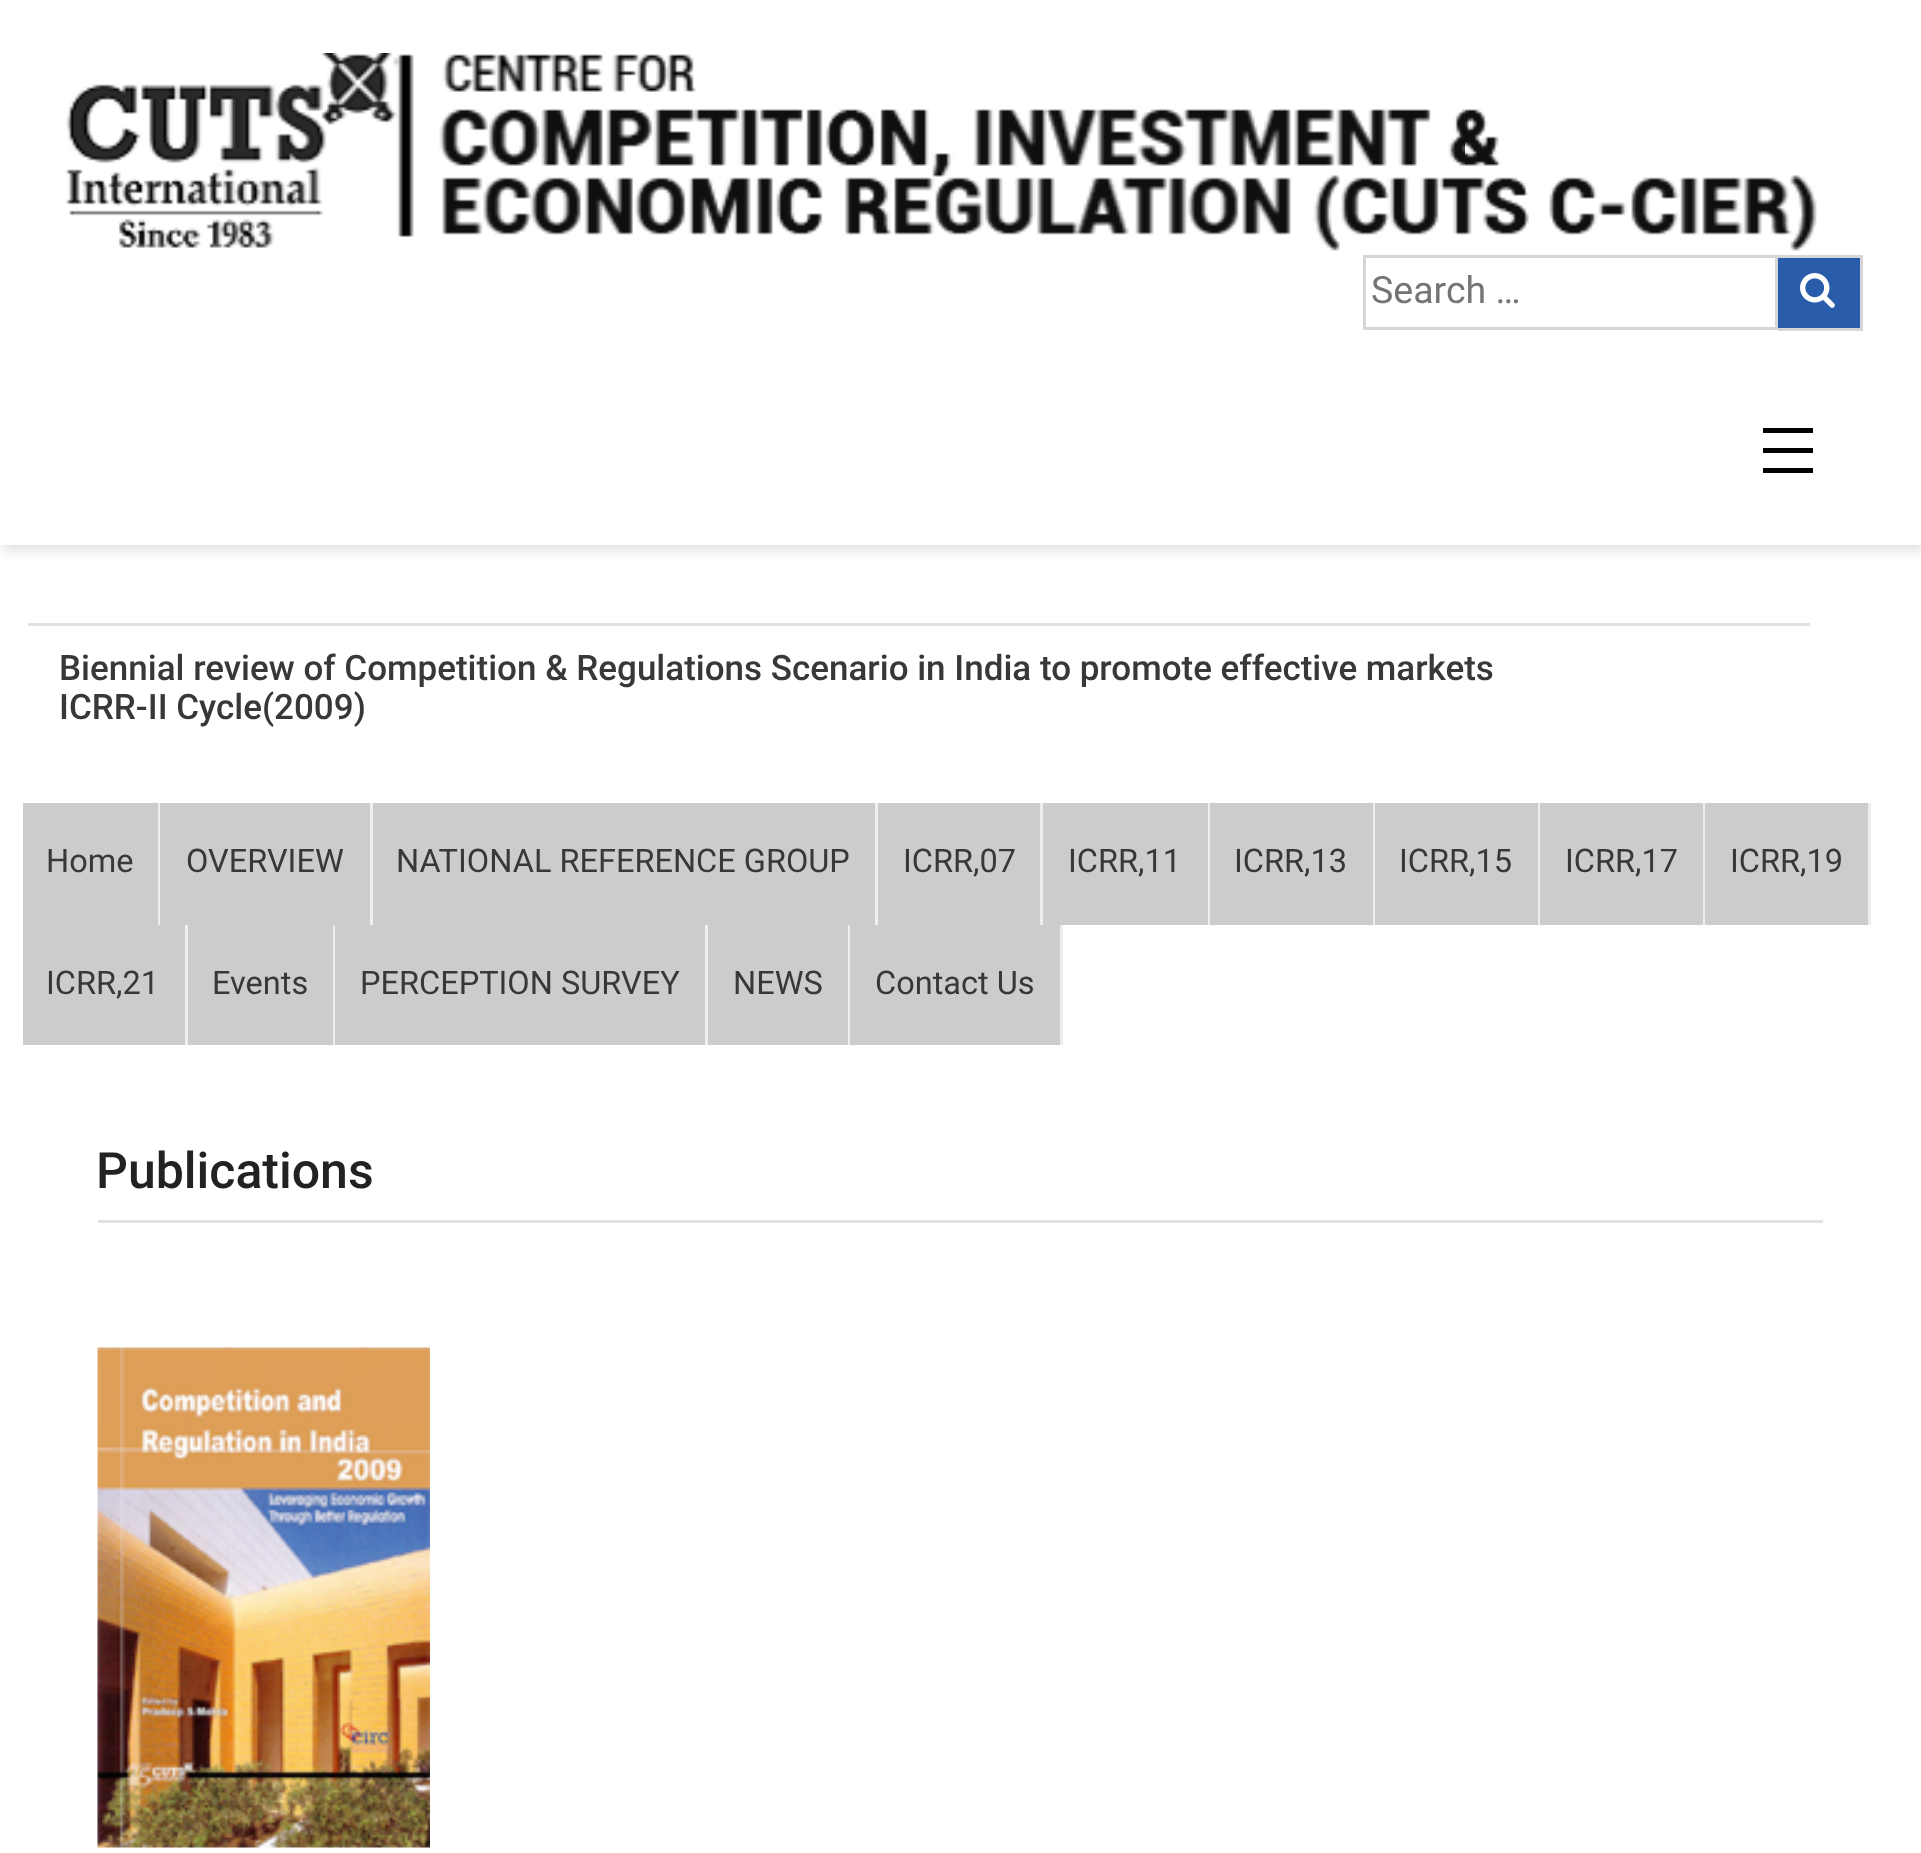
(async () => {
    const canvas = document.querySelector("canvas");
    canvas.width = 1921;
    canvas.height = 1853;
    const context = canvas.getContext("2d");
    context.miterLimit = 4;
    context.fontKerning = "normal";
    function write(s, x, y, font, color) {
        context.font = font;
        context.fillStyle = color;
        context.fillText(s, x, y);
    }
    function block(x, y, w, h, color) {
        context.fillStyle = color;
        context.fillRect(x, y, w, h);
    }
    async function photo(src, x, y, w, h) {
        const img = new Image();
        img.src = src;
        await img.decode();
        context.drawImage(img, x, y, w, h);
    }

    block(0, 0, 1921, 1853, "rgb(255, 255, 255)");
    context.fillStyle = "rgb(222, 222, 222)";
    context.filter = "blur(6px)";
    context.beginPath();
    context.rect(3, 5, 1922, 545);
    context.fill();
    context.filter = "none";
    block(0, 0, 1921, 545, "rgb(255, 255, 255)");
    await photo("media/1.png", 65, 53, 1752, 198);
    context.strokeStyle = "rgb(214, 214, 214)";
    context.lineWidth = 3;
    context.strokeRect(1364.5, 256.5, 412, 72);
    write("Search …", 1371, 303, "37.5px Roboto", "rgb(117, 117, 117)");
    block(1778, 258, 82, 70, "rgb(41, 92, 171)");
    block(1778, 255, 85, 3, "rgb(214, 214, 214)");
    block(1860, 255, 3, 75, "rgb(214, 214, 214)");
    block(1778, 328, 85, 3, "rgb(214, 214, 214)");
    await photo("media/2.png", 1800, 273, 35, 35);
    block(1763, 428, 50, 5, "rgb(0, 0, 0)");
    block(1763, 448, 50, 5, "rgb(0, 0, 0)");
    block(1763, 468, 50, 5, "rgb(0, 0, 0)");
    block(28, 623, 1782, 3, "rgb(226, 226, 226)");
    write("Biennial review of Competition & Regulations Scenario in India to promote effective markets", 59, 680, "500 35px Roboto", "rgb(56, 56, 56)");
    write("ICRR-II Cycle(2009)", 59, 719, "500 35px Roboto", "rgb(56, 56, 56)");
    block(23, 803, 135, 122, "rgb(204, 204, 204)");
    block(158, 803, 2, 122, "rgb(238, 238, 238)");
    write("Home", 46, 872, "32.5px Roboto", "rgb(56, 56, 56)");
    block(160, 803, 210, 122, "rgb(204, 204, 204)");
    block(370, 803, 3, 122, "rgb(238, 238, 238)");
    write("OVERVIEW", 186, 872, "32.5px Roboto", "rgb(56, 56, 56)");
    block(373, 803, 502, 122, "rgb(204, 204, 204)");
    block(875, 803, 3, 122, "rgb(238, 238, 238)");
    write("NATIONAL REFERENCE GROUP", 396, 872, "32.5px Roboto", "rgb(56, 56, 56)");
    block(878, 803, 162, 122, "rgb(204, 204, 204)");
    block(1040, 803, 3, 122, "rgb(238, 238, 238)");
    write("ICRR,07", 903, 872, "32.5px Roboto", "rgb(56, 56, 56)");
    block(1043, 803, 165, 122, "rgb(204, 204, 204)");
    block(1208, 803, 2, 122, "rgb(238, 238, 238)");
    write("ICRR,11", 1068, 872, "32.5px Roboto", "rgb(56, 56, 56)");
    block(1210, 803, 163, 122, "rgb(204, 204, 204)");
    block(1373, 803, 2, 122, "rgb(238, 238, 238)");
    write("ICRR,13", 1234, 872, "32.5px Roboto", "rgb(56, 56, 56)");
    block(1375, 803, 163, 122, "rgb(204, 204, 204)");
    block(1538, 803, 2, 122, "rgb(238, 238, 238)");
    write("ICRR,15", 1399, 872, "32.5px Roboto", "rgb(56, 56, 56)");
    block(1540, 803, 163, 122, "rgb(204, 204, 204)");
    block(1703, 803, 2, 122, "rgb(238, 238, 238)");
    write("ICRR,17", 1565, 872, "32.5px Roboto", "rgb(56, 56, 56)");
    block(1705, 803, 163, 122, "rgb(204, 204, 204)");
    block(1868, 803, 3, 122, "rgb(238, 238, 238)");
    write("ICRR,19", 1730, 872, "32.5px Roboto", "rgb(56, 56, 56)");
    block(23, 925, 162, 120, "rgb(204, 204, 204)");
    block(185, 925, 3, 120, "rgb(238, 238, 238)");
    write("ICRR,21", 46, 994, "32.5px Roboto", "rgb(56, 56, 56)");
    block(188, 925, 145, 120, "rgb(204, 204, 204)");
    block(333, 925, 2, 120, "rgb(238, 238, 238)");
    write("Events", 212, 994, "32.5px Roboto", "rgb(56, 56, 56)");
    block(335, 925, 370, 120, "rgb(204, 204, 204)");
    block(705, 925, 3, 120, "rgb(238, 238, 238)");
    write("PERCEPTION SURVEY", 360, 994, "32.5px Roboto", "rgb(56, 56, 56)");
    block(708, 925, 140, 120, "rgb(204, 204, 204)");
    block(848, 925, 2, 120, "rgb(238, 238, 238)");
    write("NEWS", 733, 994, "32.5px Roboto", "rgb(56, 56, 56)");
    block(850, 925, 210, 120, "rgb(204, 204, 204)");
    block(1060, 925, 3, 120, "rgb(238, 238, 238)");
    write("Contact Us", 875, 994, "32.5px Roboto", "rgb(56, 56, 56)");
    block(98, 1220, 1725, 3, "rgb(226, 226, 226)");
    write("Publications", 96, 1188, "500 50px Roboto", "rgb(34, 34, 34)");
    await photo("media/3.png", 97, 1347, 333, 501);
})();
